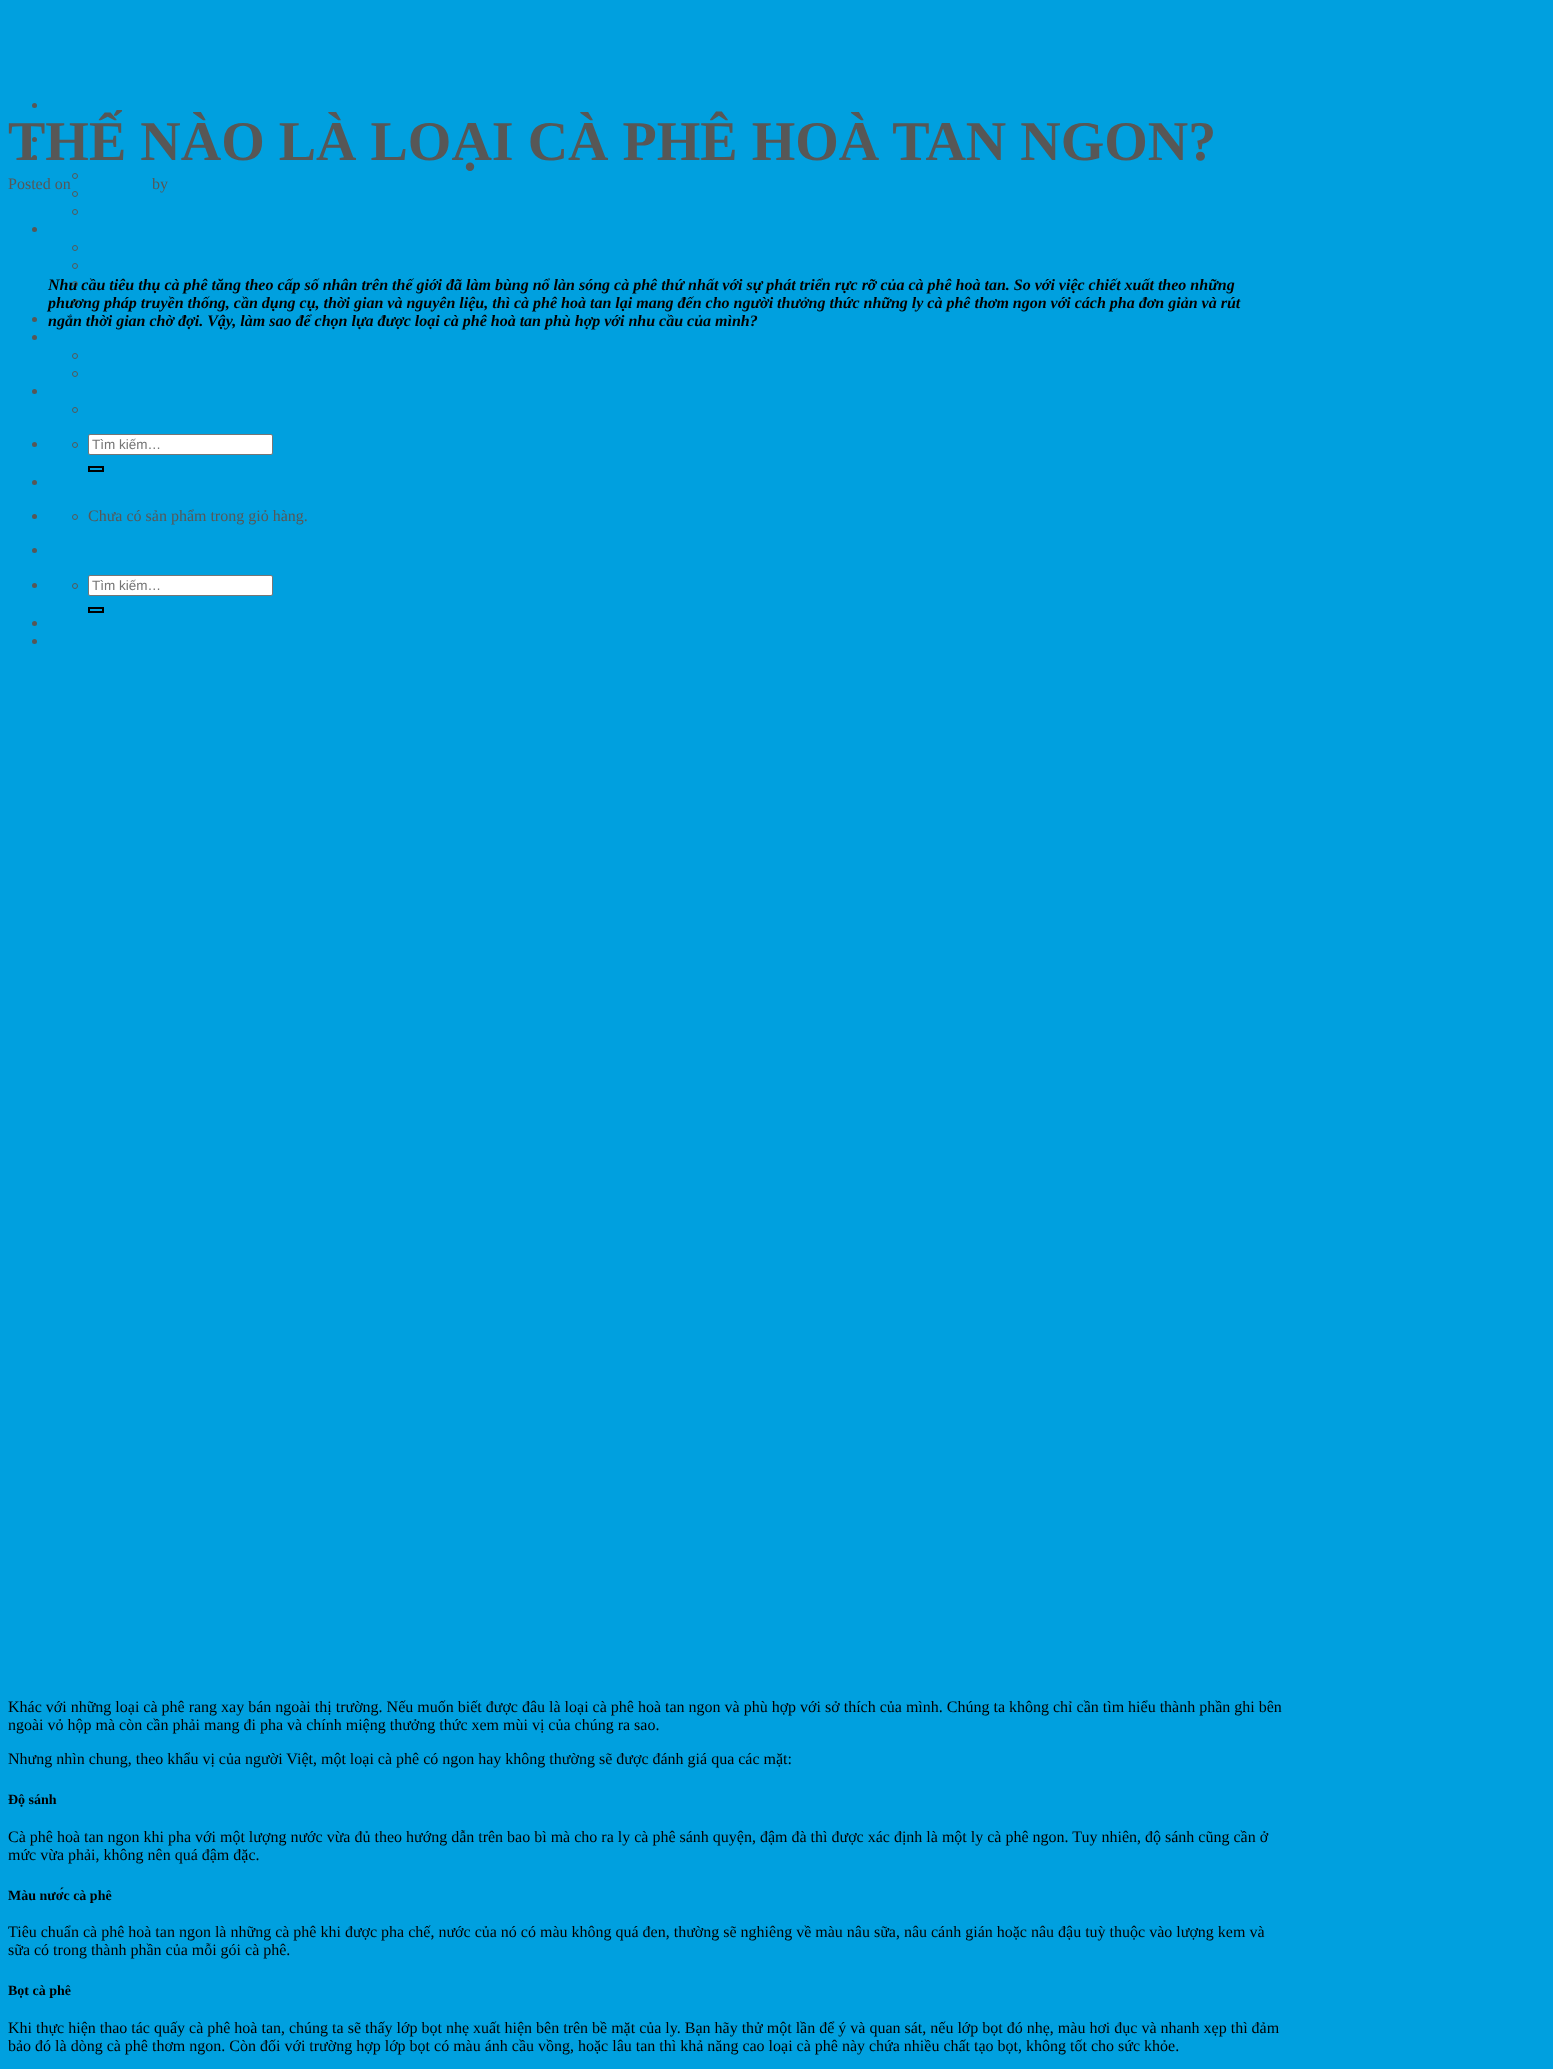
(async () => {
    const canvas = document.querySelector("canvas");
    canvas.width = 1553;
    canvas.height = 2069;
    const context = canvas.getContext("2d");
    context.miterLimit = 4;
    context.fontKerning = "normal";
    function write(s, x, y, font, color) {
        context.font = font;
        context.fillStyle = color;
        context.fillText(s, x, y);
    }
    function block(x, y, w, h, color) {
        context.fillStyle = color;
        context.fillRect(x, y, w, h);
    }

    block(0, 0, 1553, 2069, "rgb(0, 160, 223)");
    context.fillStyle = "rgb(87, 87, 86)";
    context.beginPath();
    context.arc(34.5, 139.5, 2.5, 0, Math.PI * 2);
    context.fill();
    context.beginPath();
    context.arc(34.5, 157.5, 2.5, 0, Math.PI * 2);
    context.fill();
    write("THẾ NÀO LÀ LOẠI CÀ PHÊ HOÀ TAN NGON?", 8, 160, "bold 56px Liberation Serif", "rgb(87, 87, 86)");
    write("Posted on", 8, 189, "16px Liberation Serif", "rgb(87, 87, 86)");
    write("by", 152, 189, "16px Liberation Serif", "rgb(87, 87, 86)");
    context.beginPath();
    context.arc(75, 284, 2.5, 0, Math.PI * 2);
    context.strokeStyle = "rgb(87, 87, 86)";
    context.stroke();
    write("Nhu cầu tiêu thụ cà phê tăng theo cấp số nhân trên thế giới đã làm bùng nổ làn sóng cà phê thứ nhất với sự phát triển rực rỡ của cà phê hoà tan. So với việc chiết xuất theo những", 48, 290, "italic bold 16px Liberation Serif", "rgb(0, 0, 0)");
    context.beginPath();
    context.arc(75, 302, 2.5, 0, Math.PI * 2);
    context.stroke();
    write("phương pháp truyền thống, cần dụng cụ, thời gian và nguyên liệu, thì cà phê hoà tan lại mang đến cho người thưởng thức những ly cà phê thơm ngon với cách pha đơn giản và rút", 48, 308, "italic bold 16px Liberation Serif", "rgb(0, 0, 0)");
    write("ngắn thời gian chờ đợi. Vậy, làm sao để chọn lựa được loại cà phê hoà tan phù hợp với nhu cầu của mình?", 48, 326, "italic bold 16px Liberation Serif", "rgb(0, 0, 0)");
    write("Khác với những loại cà phê rang xay bán ngoài thị trường. Nếu muốn biết được đâu là loại cà phê hoà tan ngon và phù hợp với sở thích của mình. Chúng ta không chỉ cần tìm hiểu thành phần ghi bên", 8, 1712, "16px Liberation Serif", "rgb(0, 0, 0)");
    write("ngoài vỏ hộp mà còn cần phải mang đi pha và chính miệng thưởng thức xem mùi vị của chúng ra sao.", 8, 1730, "16px Liberation Serif", "rgb(0, 0, 0)");
    write("Nhưng nhìn chung, theo khẩu vị của người Việt, một loại cà phê có ngon hay không thường sẽ được đánh giá qua các mặt:", 8, 1764, "16px Liberation Serif", "rgb(0, 0, 0)");
    write("Độ sánh", 8, 1804, "bold 14px Liberation Serif", "rgb(0, 0, 0)");
    write("Cà phê hoà tan ngon khi pha với một lượng nước vừa đủ theo hướng dẫn trên bao bì mà cho ra ly cà phê sánh quyện, đậm đà thì được xác định là một ly cà phê ngon. Tuy nhiên, độ sánh cũng cần ở", 8, 1842, "16px Liberation Serif", "rgb(0, 0, 0)");
    write("mức vừa phải, không nên quá đậm đặc.", 8, 1860, "16px Liberation Serif", "rgb(0, 0, 0)");
    write("Màu nước cà phê", 8, 1900, "bold 14px Liberation Serif", "rgb(0, 0, 0)");
    write("Tiêu chuẩn cà phê hoà tan ngon là những cà phê khi được pha chế, nước của nó có màu không quá đen, thường sẽ nghiêng về màu nâu sữa, nâu cánh gián hoặc nâu đậu tuỳ thuộc vào lượng kem và", 8, 1937, "16px Liberation Serif", "rgb(0, 0, 0)");
    write("sữa có trong thành phần của mỗi gói cà phê.", 8, 1955, "16px Liberation Serif", "rgb(0, 0, 0)");
    write("Bọt cà phê", 8, 1995, "bold 14px Liberation Serif", "rgb(0, 0, 0)");
    write("Khi thực hiện thao tác quấy cà phê hoà tan, chúng ta sẽ thấy lớp bọt nhẹ xuất hiện bên trên bề mặt của ly. Bạn hãy thử một lần để ý và quan sát, nếu lớp bọt đó nhẹ, màu hơi đục và nhanh xẹp thì đảm", 8, 2033, "16px Liberation Serif", "rgb(0, 0, 0)");
    write("bảo đó là dòng cà phê thơm ngon. Còn đối với trường hợp lớp bọt có màu ánh cầu vồng, hoặc lâu tan thì khả năng cao loại cà phê này chứa nhiều chất tạo bọt, không tốt cho sức khỏe.", 8, 2051, "16px Liberation Serif", "rgb(0, 0, 0)");
    context.fillStyle = "rgb(87, 87, 86)";
    context.beginPath();
    context.arc(34.5, 105.5, 2.5, 0, Math.PI * 2);
    context.fill();
    context.beginPath();
    context.arc(75, 176, 2.5, 0, Math.PI * 2);
    context.stroke();
    context.beginPath();
    context.arc(75, 194, 2.5, 0, Math.PI * 2);
    context.stroke();
    context.beginPath();
    context.arc(75, 212, 2.5, 0, Math.PI * 2);
    context.stroke();
    context.beginPath();
    context.arc(34.5, 229.5, 2.5, 0, Math.PI * 2);
    context.fill();
    context.beginPath();
    context.arc(75, 248, 2.5, 0, Math.PI * 2);
    context.stroke();
    context.beginPath();
    context.arc(75, 266, 2.5, 0, Math.PI * 2);
    context.stroke();
    context.beginPath();
    context.arc(34.5, 319.5, 2.5, 0, Math.PI * 2);
    context.fill();
    context.beginPath();
    context.arc(34.5, 337.5, 2.5, 0, Math.PI * 2);
    context.fill();
    context.beginPath();
    context.arc(75, 356, 2.5, 0, Math.PI * 2);
    context.stroke();
    context.beginPath();
    context.arc(75, 374, 2.5, 0, Math.PI * 2);
    context.stroke();
    context.beginPath();
    context.arc(34.5, 391.5, 2.5, 0, Math.PI * 2);
    context.fill();
    context.beginPath();
    context.arc(75, 410, 2.5, 0, Math.PI * 2);
    context.stroke();
    context.beginPath();
    context.arc(34.5, 444.5, 2.5, 0, Math.PI * 2);
    context.fill();
    context.beginPath();
    context.arc(75, 445, 2.5, 0, Math.PI * 2);
    context.stroke();
    context.fillStyle = "rgb(255, 255, 255)";
    context.beginPath();
    context.roundRect(88.5, 434.5, 184, 20, 1.5);
    context.fill();
    context.strokeStyle = "rgb(118, 118, 118)";
    context.stroke();
    write("Tìm kiếm…", 92, 449, "13.5px Liberation Sans", "rgb(117, 117, 117)");
    context.strokeStyle = "rgb(0, 0, 0)";
    context.lineWidth = 2;
    context.strokeRect(89, 467, 14, 4);
    context.fillStyle = "rgb(87, 87, 86)";
    context.beginPath();
    context.arc(34.5, 482.5, 2.5, 0, Math.PI * 2);
    context.fill();
    context.beginPath();
    context.arc(34.5, 516.5, 2.5, 0, Math.PI * 2);
    context.fill();
    context.beginPath();
    context.arc(75, 517, 2.5, 0, Math.PI * 2);
    context.strokeStyle = "rgb(87, 87, 86)";
    context.lineWidth = 1;
    context.stroke();
    write("Chưa có sản phẩm trong giỏ hàng.", 88, 521, "16px Liberation Serif", "rgb(87, 87, 86)");
    context.beginPath();
    context.arc(34.5, 550.5, 2.5, 0, Math.PI * 2);
    context.fill();
    context.beginPath();
    context.arc(34.5, 585.5, 2.5, 0, Math.PI * 2);
    context.fill();
    context.beginPath();
    context.arc(75, 586, 2.5, 0, Math.PI * 2);
    context.stroke();
    context.fillStyle = "rgb(255, 255, 255)";
    context.beginPath();
    context.roundRect(88.5, 575.5, 184, 20, 1.5);
    context.fill();
    context.strokeStyle = "rgb(118, 118, 118)";
    context.stroke();
    write("Tìm kiếm…", 92, 590, "13.5px Liberation Sans", "rgb(117, 117, 117)");
    context.strokeStyle = "rgb(0, 0, 0)";
    context.lineWidth = 2;
    context.strokeRect(89, 608, 14, 4);
    context.fillStyle = "rgb(87, 87, 86)";
    context.beginPath();
    context.arc(34.5, 623.5, 2.5, 0, Math.PI * 2);
    context.fill();
    context.beginPath();
    context.arc(34.5, 641.5, 2.5, 0, Math.PI * 2);
    context.fill();
})();
